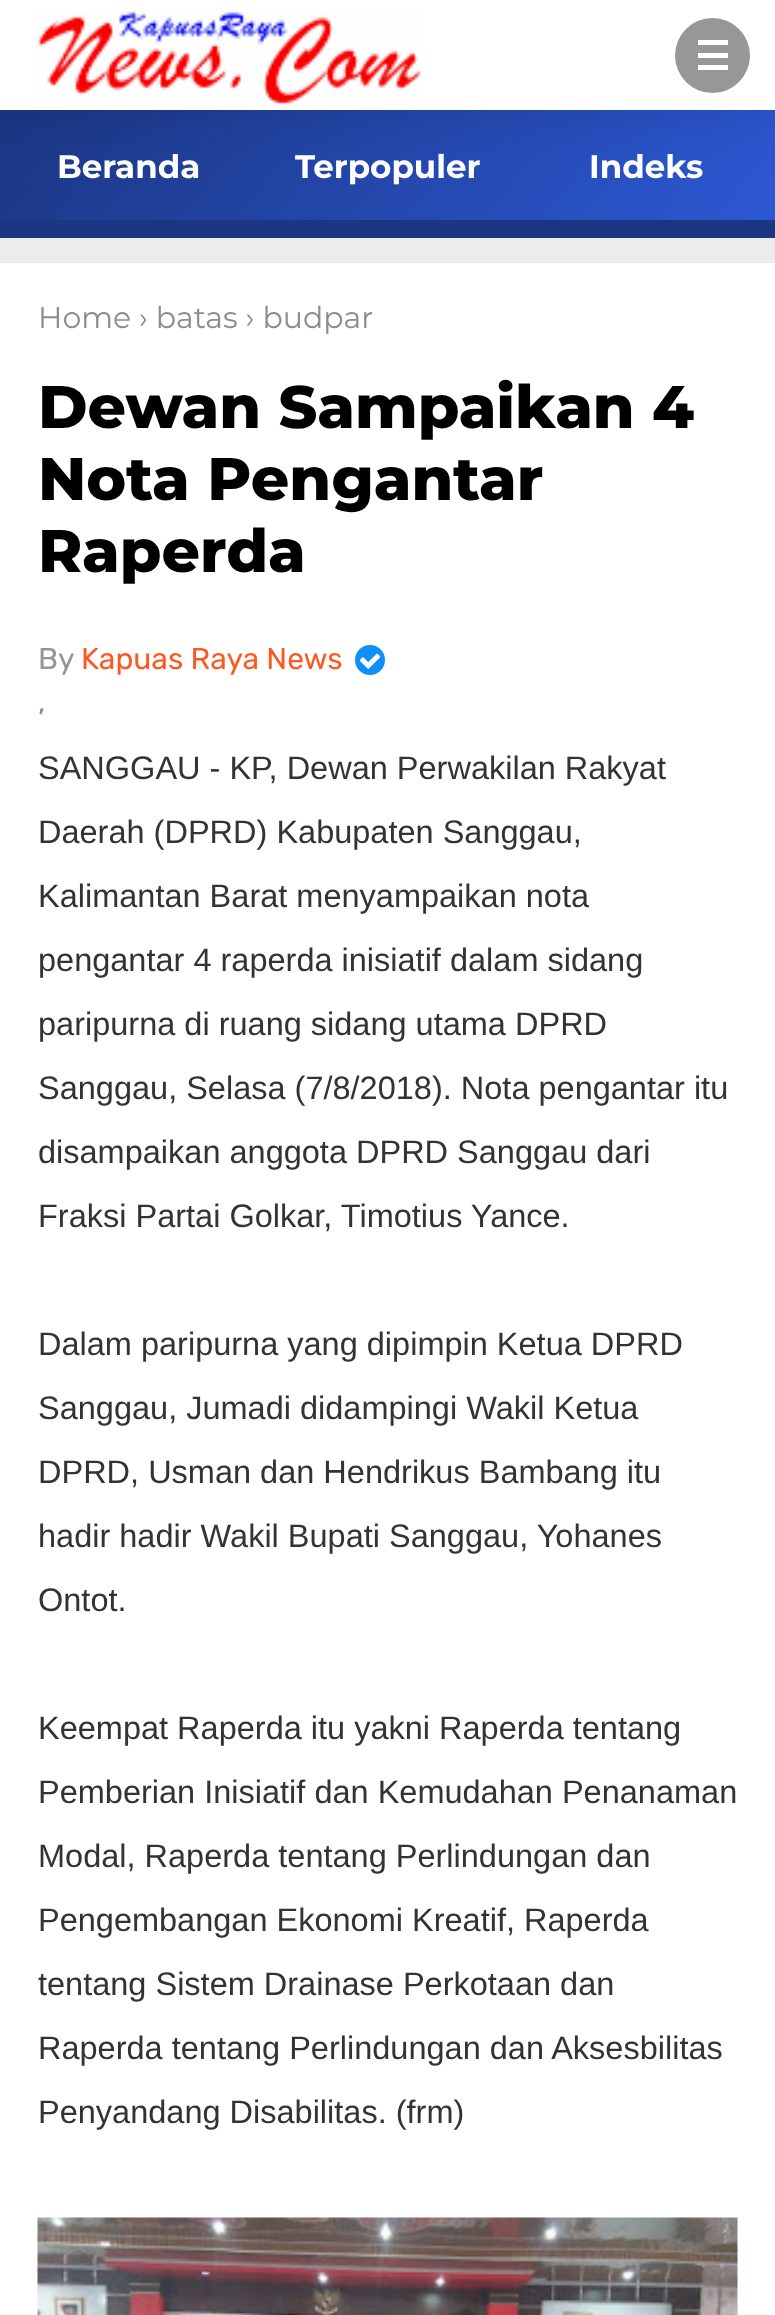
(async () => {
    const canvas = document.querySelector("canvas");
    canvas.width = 775;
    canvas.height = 2315;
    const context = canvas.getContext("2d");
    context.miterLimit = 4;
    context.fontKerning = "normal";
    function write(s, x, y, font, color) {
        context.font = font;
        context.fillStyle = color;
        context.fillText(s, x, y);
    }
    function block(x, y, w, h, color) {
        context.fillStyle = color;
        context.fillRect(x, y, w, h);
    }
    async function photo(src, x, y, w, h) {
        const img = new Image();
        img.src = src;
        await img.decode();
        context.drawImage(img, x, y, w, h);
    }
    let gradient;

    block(0, 0, 775, 2315, "rgb(236, 236, 236)");
    gradient = context.createLinearGradient(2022, 876, 458, -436);
    gradient.addColorStop(0, "rgb(27, 54, 130)");
    gradient.addColorStop(0.5, "rgb(53, 106, 255)");
    gradient.addColorStop(1, "rgb(27, 54, 130)");
    context.fillStyle = gradient;
    context.fillRect(0, 110, 775, 110);
    context.fillStyle = "rgba(0, 0, 0, 0.1)";
    context.filter = "blur(19px)";
    context.beginPath();
    context.rect(0, 0, 775, 110);
    context.fill();
    context.filter = "none";
    block(0, 0, 775, 110, "rgb(255, 255, 255)");
    await photo("media/1.png", 37, 10, 384, 96);
    context.fillStyle = "rgb(151, 151, 151)";
    context.beginPath();
    context.arc(712.5, 55.5, 37.5, 0, Math.PI * 2);
    context.fill();
    block(698, 40, 30, 5, "rgb(255, 255, 255)");
    block(698, 53, 30, 5, "rgb(255, 255, 255)");
    block(698, 65, 30, 5, "rgb(255, 255, 255)");
    write("Beranda", 57, 178, "bold 32.5px Montserrat", "rgb(255, 255, 255)");
    write("Terpopuler", 295, 178, "bold 32.5px Montserrat", "rgb(255, 255, 255)");
    write("Indeks", 589, 178, "bold 32.5px Montserrat", "rgb(255, 255, 255)");
    block(0, 220, 775, 18, "rgb(27, 54, 130)");
    block(0, 263, 775, 2052, "rgb(255, 255, 255)");
    write("Home › batas › budpar", 38, 328, "30px Montserrat", "rgb(140, 140, 140)");
    write("Dewan Sampaikan 4", 38, 428, "800 60px Montserrat", "rgb(0, 0, 0)");
    write("Nota Pengantar", 38, 500, "800 60px Montserrat", "rgb(0, 0, 0)");
    write("Raperda", 38, 572, "800 60px Montserrat", "rgb(0, 0, 0)");
    write("By", 38, 669, "30px Rubik", "rgb(149, 149, 149)");
    write("Kapuas Raya News", 81, 669, "30px Rubik", "rgb(255, 87, 34)");
    await photo("media/2.png", 355, 645, 30, 30);
    write(",", 38, 712, "30px Rubik", "rgb(140, 140, 140)");
    write("SANGGAU - KP, Dewan Perwakilan Rakyat", 38, 779, "32.5px Liberation Sans", "rgb(51, 51, 51)");
    write("Daerah (DPRD) Kabupaten Sanggau,", 38, 843, "32.5px Liberation Sans", "rgb(51, 51, 51)");
    write("Kalimantan Barat menyampaikan nota", 38, 907, "32.5px Liberation Sans", "rgb(51, 51, 51)");
    write("pengantar 4 raperda inisiatif dalam sidang", 38, 971, "32.5px Liberation Sans", "rgb(51, 51, 51)");
    write("paripurna di ruang sidang utama DPRD", 38, 1035, "32.5px Liberation Sans", "rgb(51, 51, 51)");
    write("Sanggau, Selasa (7/8/2018). Nota pengantar itu", 38, 1099, "32.5px Liberation Sans", "rgb(51, 51, 51)");
    write("disampaikan anggota DPRD Sanggau dari", 38, 1163, "32.5px Liberation Sans", "rgb(51, 51, 51)");
    write("Fraksi Partai Golkar, Timotius Yance.", 38, 1227, "32.5px Liberation Sans", "rgb(51, 51, 51)");
    write("Dalam paripurna yang dipimpin Ketua DPRD", 38, 1355, "32.5px Liberation Sans", "rgb(51, 51, 51)");
    write("Sanggau, Jumadi didampingi Wakil Ketua", 38, 1419, "32.5px Liberation Sans", "rgb(51, 51, 51)");
    write("DPRD, Usman dan Hendrikus Bambang itu", 38, 1483, "32.5px Liberation Sans", "rgb(51, 51, 51)");
    write("hadir hadir Wakil Bupati Sanggau, Yohanes", 38, 1547, "32.5px Liberation Sans", "rgb(51, 51, 51)");
    write("Ontot.", 38, 1611, "32.5px Liberation Sans", "rgb(51, 51, 51)");
    write("Keempat Raperda itu yakni Raperda tentang", 38, 1739, "32.5px Liberation Sans", "rgb(51, 51, 51)");
    write("Pemberian Inisiatif dan Kemudahan Penanaman", 38, 1803, "32.5px Liberation Sans", "rgb(51, 51, 51)");
    write("Modal, Raperda tentang Perlindungan dan", 38, 1867, "32.5px Liberation Sans", "rgb(51, 51, 51)");
    write("Pengembangan Ekonomi Kreatif, Raperda", 38, 1931, "32.5px Liberation Sans", "rgb(51, 51, 51)");
    write("tentang Sistem Drainase Perkotaan dan", 38, 1995, "32.5px Liberation Sans", "rgb(51, 51, 51)");
    write("Raperda tentang Perlindungan dan Aksesbilitas", 38, 2059, "32.5px Liberation Sans", "rgb(51, 51, 51)");
    write("Penyandang Disabilitas. (frm)", 38, 2123, "32.5px Liberation Sans", "rgb(51, 51, 51)");
    await photo("media/3.png", 37, 2217, 701, 98);
})();
